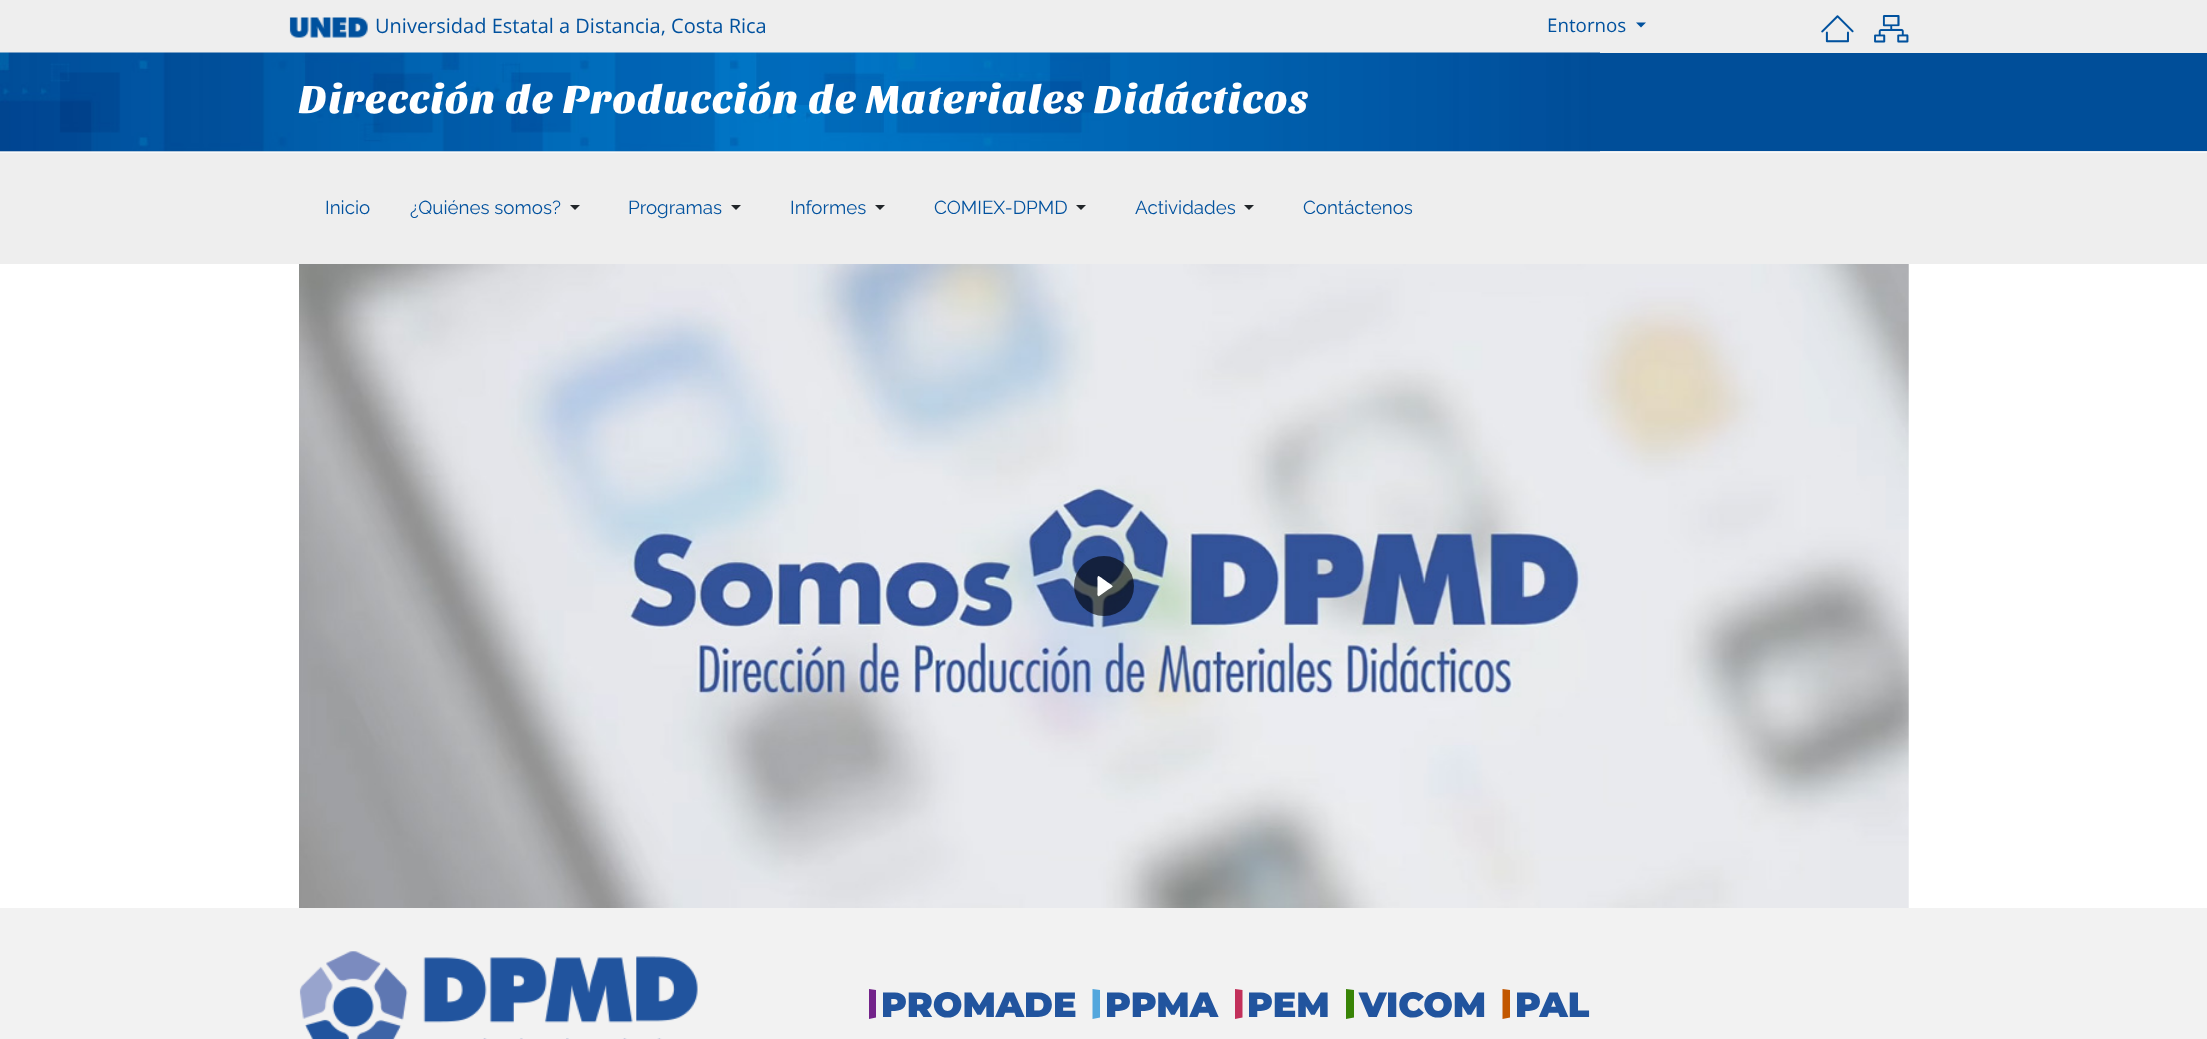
(async () => {
    const canvas = document.querySelector("canvas");
    canvas.width = 2207;
    canvas.height = 1039;
    const context = canvas.getContext("2d");
    context.miterLimit = 4;
    context.fontKerning = "normal";
    function write(s, x, y, font, color) {
        context.font = font;
        context.fillStyle = color;
        context.fillText(s, x, y);
    }
    function block(x, y, w, h, color) {
        context.fillStyle = color;
        context.fillRect(x, y, w, h);
    }
    async function photo(src, x, y, w, h) {
        const img = new Image();
        img.src = src;
        await img.decode();
        context.drawImage(img, x, y, w, h);
    }

    block(0, 0, 2207, 1039, "rgb(255, 255, 255)");
    block(0, 0, 2207, 53, "rgb(238, 238, 238)");
    await photo("media/1.png", 289, 17, 79, 21);
    write("Universidad Estatal a Distancia, Costa Rica", 375, 33, "20px Open Sans", "rgb(0, 81, 158)");
    write("Entornos", 1547, 32, "18.75px Open Sans", "rgb(0, 81, 158)");
    context.beginPath();
    context.moveTo(1636, 22.5);
    context.lineTo(1646, 22.5);
    context.lineTo(1641, 27.5);
    context.closePath();
    context.fill();
    await photo("media/2.png", 1821, 15, 33, 28);
    await photo("media/3.png", 1874, 15, 35, 28);
    block(0, 152, 2207, 1, "rgb(248, 249, 250)");
    block(0, 151, 2207, 1, "rgb(233, 236, 239)");
    block(1600, 53, 607, 98, "rgb(0, 78, 153)");
    await photo("media/4.png", 0, 52, 1600, 100);
    context.letterSpacing = "1.9px";
    write("Dirección de Producción de Materiales Didácticos", 299, 113, "italic 800 40.8px Sansita", "rgb(255, 255, 255)");
    block(0, 153, 2207, 111, "rgb(238, 238, 238)");
    context.letterSpacing = "0px";
    write("Inicio", 325, 214, "18.75px Raleway", "rgb(0, 81, 158)");
    write("¿Quiénes somos?", 410, 214, "18.75px Raleway", "rgb(0, 81, 158)");
    context.fillStyle = "rgb(33, 37, 41)";
    context.beginPath();
    context.moveTo(570, 205);
    context.lineTo(580, 205);
    context.lineTo(575, 210);
    context.closePath();
    context.fill();
    write("Programas", 628, 214, "18.75px Raleway", "rgb(0, 81, 158)");
    context.fillStyle = "rgb(33, 37, 41)";
    context.beginPath();
    context.moveTo(731, 205);
    context.lineTo(741, 205);
    context.lineTo(736, 210);
    context.closePath();
    context.fill();
    write("Informes", 790, 214, "18.75px Raleway", "rgb(0, 81, 158)");
    context.fillStyle = "rgb(33, 37, 41)";
    context.beginPath();
    context.moveTo(875, 205);
    context.lineTo(885, 205);
    context.lineTo(880, 210);
    context.closePath();
    context.fill();
    write("COMIEX-DPMD", 934, 214, "18.75px Raleway", "rgb(0, 81, 158)");
    context.fillStyle = "rgb(33, 37, 41)";
    context.beginPath();
    context.moveTo(1076, 205);
    context.lineTo(1086, 205);
    context.lineTo(1081, 210);
    context.closePath();
    context.fill();
    write("Actividades", 1135, 214, "18.75px Raleway", "rgb(0, 81, 158)");
    context.fillStyle = "rgb(33, 37, 41)";
    context.beginPath();
    context.moveTo(1244, 205);
    context.lineTo(1254, 205);
    context.lineTo(1249, 210);
    context.closePath();
    context.fill();
    write("Contáctenos", 1303, 214, "18.75px Raleway", "rgb(0, 81, 158)");
    await photo("media/5.png", 299, 264, 1610, 644);
    context.fillStyle = "rgba(0, 0, 0, 0.6)";
    context.beginPath();
    context.arc(1104, 586, 30, 0, Math.PI * 2);
    context.fill();
    context.fillStyle = "rgb(255, 255, 255)";
    context.beginPath();
    context.moveTo(1098.5, 596);
    context.bezierCurveTo(1097, 596, 1097.5, 592.5, 1097.5, 592.5);
    context.lineTo(1097.5, 580);
    context.bezierCurveTo(1097.5, 580, 1097, 576.5, 1098.5, 576);
    context.bezierCurveTo(1099.5, 576, 1106.5, 581.5, 1108, 582.5);
    context.bezierCurveTo(1115, 587.5, 1114, 585.5, 1105.5, 591.5);
    context.lineTo(1098.5, 596.5);
    context.closePath();
    context.fill();
    block(0, 908, 2207, 131, "rgb(242, 242, 242)");
    await photo("media/6.png", 299, 951, 399, 88);
    context.fillStyle = "rgb(115, 35, 138)";
    context.beginPath();
    context.moveTo(869, 1019);
    context.lineTo(869, 989);
    context.lineTo(876, 990);
    context.lineTo(876, 1017.5);
    context.closePath();
    context.fill();
    write("PROMADE", 881, 1017, "100 35px Montserrat", "rgb(33, 84, 158)");
    context.fillStyle = "rgb(84, 167, 221)";
    context.beginPath();
    context.moveTo(1092.5, 1019);
    context.lineTo(1092.5, 989);
    context.lineTo(1100, 990);
    context.lineTo(1100, 1017.5);
    context.closePath();
    context.fill();
    write("PPMA", 1105, 1017, "100 35px Montserrat", "rgb(33, 84, 158)");
    context.fillStyle = "rgb(194, 48, 91)";
    context.beginPath();
    context.moveTo(1235, 1019);
    context.lineTo(1235, 989);
    context.lineTo(1242.5, 990);
    context.lineTo(1242.5, 1017.5);
    context.closePath();
    context.fill();
    write("PEM", 1247, 1017, "100 35px Montserrat", "rgb(33, 84, 158)");
    context.fillStyle = "rgb(56, 132, 6)";
    context.beginPath();
    context.moveTo(1346, 1019);
    context.lineTo(1346, 989);
    context.lineTo(1354, 990);
    context.lineTo(1354, 1017.5);
    context.closePath();
    context.fill();
    write("VICOM", 1359, 1017, "100 35px Montserrat", "rgb(33, 84, 158)");
    context.fillStyle = "rgb(194, 87, 0)";
    context.beginPath();
    context.moveTo(1502.5, 1019);
    context.lineTo(1502.5, 989);
    context.lineTo(1510, 990);
    context.lineTo(1510, 1017.5);
    context.closePath();
    context.fill();
    write("PAL", 1515, 1017, "100 35px Montserrat", "rgb(33, 84, 158)");
})();
